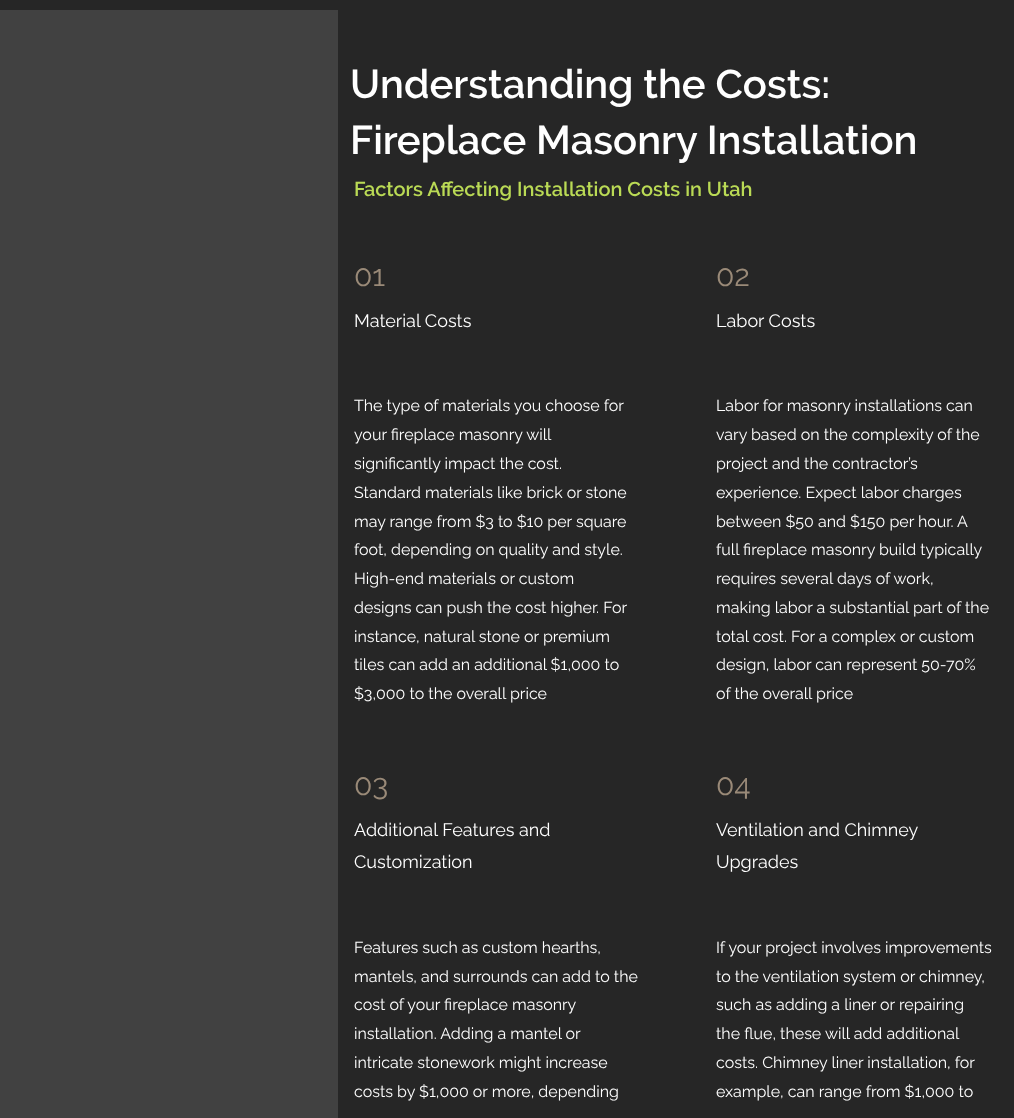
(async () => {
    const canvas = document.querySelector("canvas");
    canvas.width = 1014;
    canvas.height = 1118;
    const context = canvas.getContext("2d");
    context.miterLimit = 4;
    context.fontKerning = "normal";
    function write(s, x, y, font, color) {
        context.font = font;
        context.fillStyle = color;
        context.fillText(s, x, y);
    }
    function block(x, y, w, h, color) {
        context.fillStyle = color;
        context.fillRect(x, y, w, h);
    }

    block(0, 0, 1014, 1118, "rgb(38, 38, 38)");
    block(0, 10, 338, 1108, "rgb(65, 65, 65)");
    write("Understanding the Costs:", 350, 98, "600 40px Raleway", "rgb(255, 255, 255)");
    write("Fireplace Masonry Installation", 350, 154, "600 40px Raleway", "rgb(255, 255, 255)");
    write("Factors Affecting Installation Costs in Utah", 354, 196, "600 20px Raleway", "rgb(186, 218, 85)");
    write("01", 354, 286, "30px Raleway", "rgb(154, 138, 120)");
    write("02", 716, 286, "30px Raleway", "rgb(154, 138, 120)");
    write("Material Costs", 354, 327, "18px Raleway", "rgb(255, 255, 255)");
    write("Labor Costs", 716, 327, "18px Raleway", "rgb(255, 255, 255)");
    write("The type of materials you choose for", 354, 411, "16px Raleway", "rgb(255, 255, 255)");
    write("your fireplace masonry will", 354, 440, "16px Raleway", "rgb(255, 255, 255)");
    write("significantly impact the cost.", 354, 469, "16px Raleway", "rgb(255, 255, 255)");
    write("Standard materials like brick or stone", 354, 498, "16px Raleway", "rgb(255, 255, 255)");
    write("may range from $3 to $10 per square", 354, 527, "16px Raleway", "rgb(255, 255, 255)");
    write("foot, depending on quality and style.", 354, 555, "16px Raleway", "rgb(255, 255, 255)");
    write("High-end materials or custom", 354, 584, "16px Raleway", "rgb(255, 255, 255)");
    write("designs can push the cost higher. For", 354, 613, "16px Raleway", "rgb(255, 255, 255)");
    write("instance, natural stone or premium", 354, 642, "16px Raleway", "rgb(255, 255, 255)");
    write("tiles can add an additional $1,000 to", 354, 670, "16px Raleway", "rgb(255, 255, 255)");
    write("$3,000 to the overall price", 354, 699, "16px Raleway", "rgb(255, 255, 255)");
    write("Labor for masonry installations can", 716, 411, "16px Raleway", "rgb(255, 255, 255)");
    write("vary based on the complexity of the", 716, 440, "16px Raleway", "rgb(255, 255, 255)");
    write("project and the contractor’s", 716, 469, "16px Raleway", "rgb(255, 255, 255)");
    write("experience. Expect labor charges", 716, 498, "16px Raleway", "rgb(255, 255, 255)");
    write("between $50 and $150 per hour. A", 716, 527, "16px Raleway", "rgb(255, 255, 255)");
    write("full fireplace masonry build typically", 716, 555, "16px Raleway", "rgb(255, 255, 255)");
    write("requires several days of work,", 716, 584, "16px Raleway", "rgb(255, 255, 255)");
    write("making labor a substantial part of the", 716, 613, "16px Raleway", "rgb(255, 255, 255)");
    write("total cost. For a complex or custom", 716, 642, "16px Raleway", "rgb(255, 255, 255)");
    write("design, labor can represent 50-70%", 716, 670, "16px Raleway", "rgb(255, 255, 255)");
    write("of the overall price", 716, 699, "16px Raleway", "rgb(255, 255, 255)");
    write("03", 354, 795, "30px Raleway", "rgb(154, 138, 120)");
    write("04", 716, 795, "30px Raleway", "rgb(154, 138, 120)");
    write("Additional Features and", 354, 836, "18px Raleway", "rgb(255, 255, 255)");
    write("Customization", 354, 868, "18px Raleway", "rgb(255, 255, 255)");
    write("Ventilation and Chimney", 716, 836, "18px Raleway", "rgb(255, 255, 255)");
    write("Upgrades", 716, 868, "18px Raleway", "rgb(255, 255, 255)");
    write("Features such as custom hearths,", 354, 953, "16px Raleway", "rgb(255, 255, 255)");
    write("mantels, and surrounds can add to the", 354, 982, "16px Raleway", "rgb(255, 255, 255)");
    write("cost of your fireplace masonry", 354, 1010, "16px Raleway", "rgb(255, 255, 255)");
    write("installation. Adding a mantel or", 354, 1039, "16px Raleway", "rgb(255, 255, 255)");
    write("intricate stonework might increase", 354, 1068, "16px Raleway", "rgb(255, 255, 255)");
    write("costs by $1,000 or more, depending", 354, 1097, "16px Raleway", "rgb(255, 255, 255)");
    write("If your project involves improvements", 716, 953, "16px Raleway", "rgb(255, 255, 255)");
    write("to the ventilation system or chimney,", 716, 982, "16px Raleway", "rgb(255, 255, 255)");
    write("such as adding a liner or repairing", 716, 1010, "16px Raleway", "rgb(255, 255, 255)");
    write("the flue, these will add additional", 716, 1039, "16px Raleway", "rgb(255, 255, 255)");
    write("costs. Chimney liner installation, for", 716, 1068, "16px Raleway", "rgb(255, 255, 255)");
    write("example, can range from $1,000 to", 716, 1097, "16px Raleway", "rgb(255, 255, 255)");
})();
